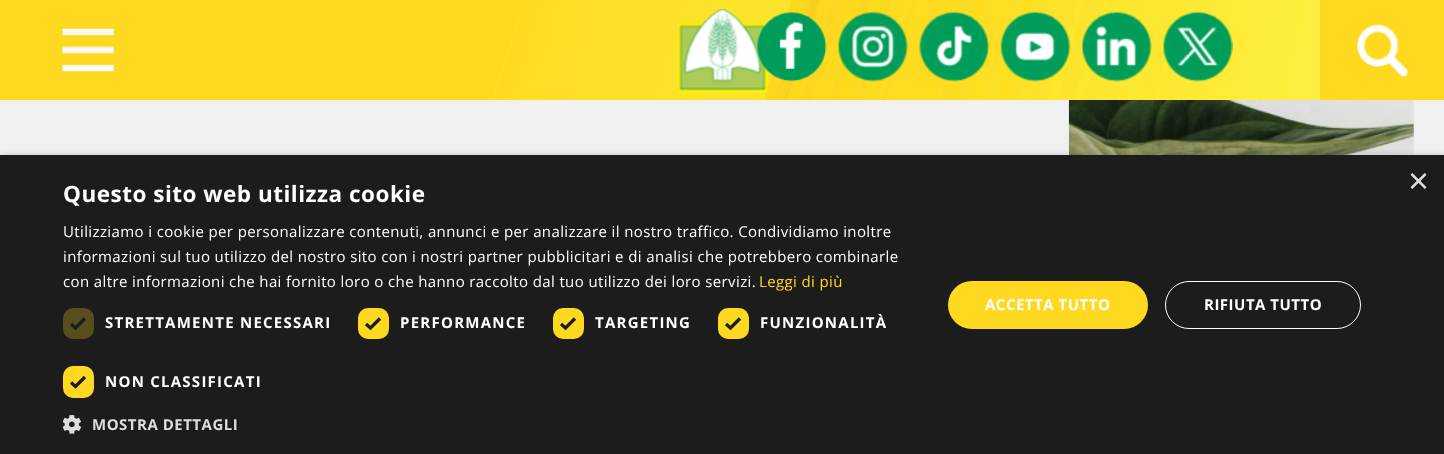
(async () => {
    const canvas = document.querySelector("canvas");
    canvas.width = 1444;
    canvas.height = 454;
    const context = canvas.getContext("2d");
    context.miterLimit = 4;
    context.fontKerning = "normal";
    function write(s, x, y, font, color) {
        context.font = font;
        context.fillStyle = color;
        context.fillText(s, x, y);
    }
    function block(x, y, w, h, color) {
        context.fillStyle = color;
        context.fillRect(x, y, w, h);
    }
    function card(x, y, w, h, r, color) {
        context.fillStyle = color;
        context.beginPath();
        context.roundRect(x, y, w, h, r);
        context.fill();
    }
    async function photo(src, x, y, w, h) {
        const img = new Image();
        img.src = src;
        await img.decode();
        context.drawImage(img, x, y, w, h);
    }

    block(0, 0, 1444, 454, "rgb(240, 240, 240)");
    block(0, 0, 1444, 100, "rgb(254, 217, 31)");
    await photo("media/1.png", 491, 0, 829, 100);
    await photo("media/2.png", 62, 28, 52, 44);
    await photo("media/3.png", 678, 9, 90, 84);
    await photo("media/4.png", 757, 12, 70, 70);
    await photo("media/5.png", 838, 11, 70, 71);
    await photo("media/6.png", 919, 11, 71, 71);
    await photo("media/7.png", 1000, 11, 71, 71);
    await photo("media/8.png", 1082, 11, 70, 71);
    await photo("media/9.png", 1163, 11, 70, 71);
    await photo("media/10.png", 1357, 24, 51, 53);
    await photo("media/11.png", 1068, 100, 346, 55);
    context.fillStyle = "rgba(0, 0, 0, 0.35)";
    context.filter = "blur(5px)";
    context.beginPath();
    context.rect(1, 158, 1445, 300);
    context.fill();
    context.filter = "none";
    block(0, 155, 1444, 299, "rgb(28, 28, 28)");
    write("×", 1408, 193, "36px Liberation Sans", "rgb(221, 221, 221)");
    context.letterSpacing = "0.5px";
    write("Questo sito web utilizza cookie", 63, 202, "bold 22.5px Open Sans", "rgb(255, 255, 255)");
    context.letterSpacing = "0.38px";
    write("Utilizziamo i cookie per personalizzare contenuti, annunci e per analizzare il nostro traffico. Condividiamo inoltre", 63, 237, "15px Open Sans", "rgb(255, 255, 255)");
    write("informazioni sul tuo utilizzo del nostro sito con i nostri partner pubblicitari e di analisi che potrebbero combinarle", 63, 262, "15px Open Sans", "rgb(255, 255, 255)");
    write("con altre informazioni che hai fornito loro o che hanno raccolto dal tuo utilizzo dei loro servizi.", 63, 287, "15px Open Sans", "rgb(255, 255, 255)");
    write("Leggi di più", 759, 287, "15px Open Sans", "rgb(254, 217, 31)");
    card(63, 308, 31, 31, 10, "rgb(87, 77, 29)");
    context.beginPath();
    context.moveTo(71, 324);
    context.lineTo(75.5, 328);
    context.lineTo(85, 318.5);
    context.strokeStyle = "rgb(28, 28, 28)";
    context.lineWidth = 3.3;
    context.stroke();
    context.letterSpacing = "1.25px";
    write("STRETTAMENTE NECESSARI", 105, 328, "bold 15px Open Sans", "rgb(255, 255, 255)");
    context.fillStyle = "rgb(254, 217, 31)";
    context.beginPath();
    context.roundRect(359.5, 309.5, 28, 28, 8.5);
    context.fill();
    context.strokeStyle = "rgb(254, 217, 31)";
    context.lineWidth = 3;
    context.stroke();
    context.beginPath();
    context.moveTo(366, 324);
    context.lineTo(370.5, 328);
    context.lineTo(380, 318.5);
    context.strokeStyle = "rgb(28, 28, 28)";
    context.lineWidth = 3.3;
    context.stroke();
    write("PERFORMANCE", 400, 328, "bold 15px Open Sans", "rgb(255, 255, 255)");
    context.fillStyle = "rgb(254, 217, 31)";
    context.beginPath();
    context.roundRect(554.5, 309.5, 28, 28, 8.5);
    context.fill();
    context.strokeStyle = "rgb(254, 217, 31)";
    context.lineWidth = 3;
    context.stroke();
    context.beginPath();
    context.moveTo(561, 324);
    context.lineTo(565.5, 328);
    context.lineTo(575, 318.5);
    context.strokeStyle = "rgb(28, 28, 28)";
    context.lineWidth = 3.3;
    context.stroke();
    write("TARGETING", 595, 328, "bold 15px Open Sans", "rgb(255, 255, 255)");
    context.fillStyle = "rgb(254, 217, 31)";
    context.beginPath();
    context.roundRect(719.5, 309.5, 28, 28, 8.5);
    context.fill();
    context.strokeStyle = "rgb(254, 217, 31)";
    context.lineWidth = 3;
    context.stroke();
    context.beginPath();
    context.moveTo(726, 324);
    context.lineTo(730.5, 328);
    context.lineTo(740, 318.5);
    context.strokeStyle = "rgb(28, 28, 28)";
    context.lineWidth = 3.3;
    context.stroke();
    write("FUNZIONALITÀ", 760, 328, "bold 15px Open Sans", "rgb(255, 255, 255)");
    context.fillStyle = "rgb(254, 217, 31)";
    context.beginPath();
    context.roundRect(64.5, 367.5, 28, 29, 8.5);
    context.fill();
    context.strokeStyle = "rgb(254, 217, 31)";
    context.lineWidth = 3;
    context.stroke();
    context.beginPath();
    context.moveTo(71, 382.5);
    context.lineTo(75.5, 386.5);
    context.lineTo(85, 377);
    context.strokeStyle = "rgb(28, 28, 28)";
    context.lineWidth = 3.3;
    context.stroke();
    write("NON CLASSIFICATI", 105, 387, "bold 15px Open Sans", "rgb(255, 255, 255)");
    await photo("media/12.png", 63, 415, 18, 19);
    context.letterSpacing = "0.5px";
    write("MOSTRA DETTAGLI", 92, 430, "bold 15px Open Sans", "rgb(221, 221, 221)");
    card(948, 281, 200, 48, 24, "rgb(254, 217, 31)");
    write("ACCETTA TUTTO", 985, 310, "bold 15px Open Sans", "rgb(255, 255, 255)");
    context.beginPath();
    context.roundRect(1165.5, 281.5, 195, 47, 23.5);
    context.strokeStyle = "rgb(255, 255, 255)";
    context.lineWidth = 1;
    context.stroke();
    write("RIFIUTA TUTTO", 1204, 310, "bold 15px Open Sans", "rgb(255, 255, 255)");
})();
